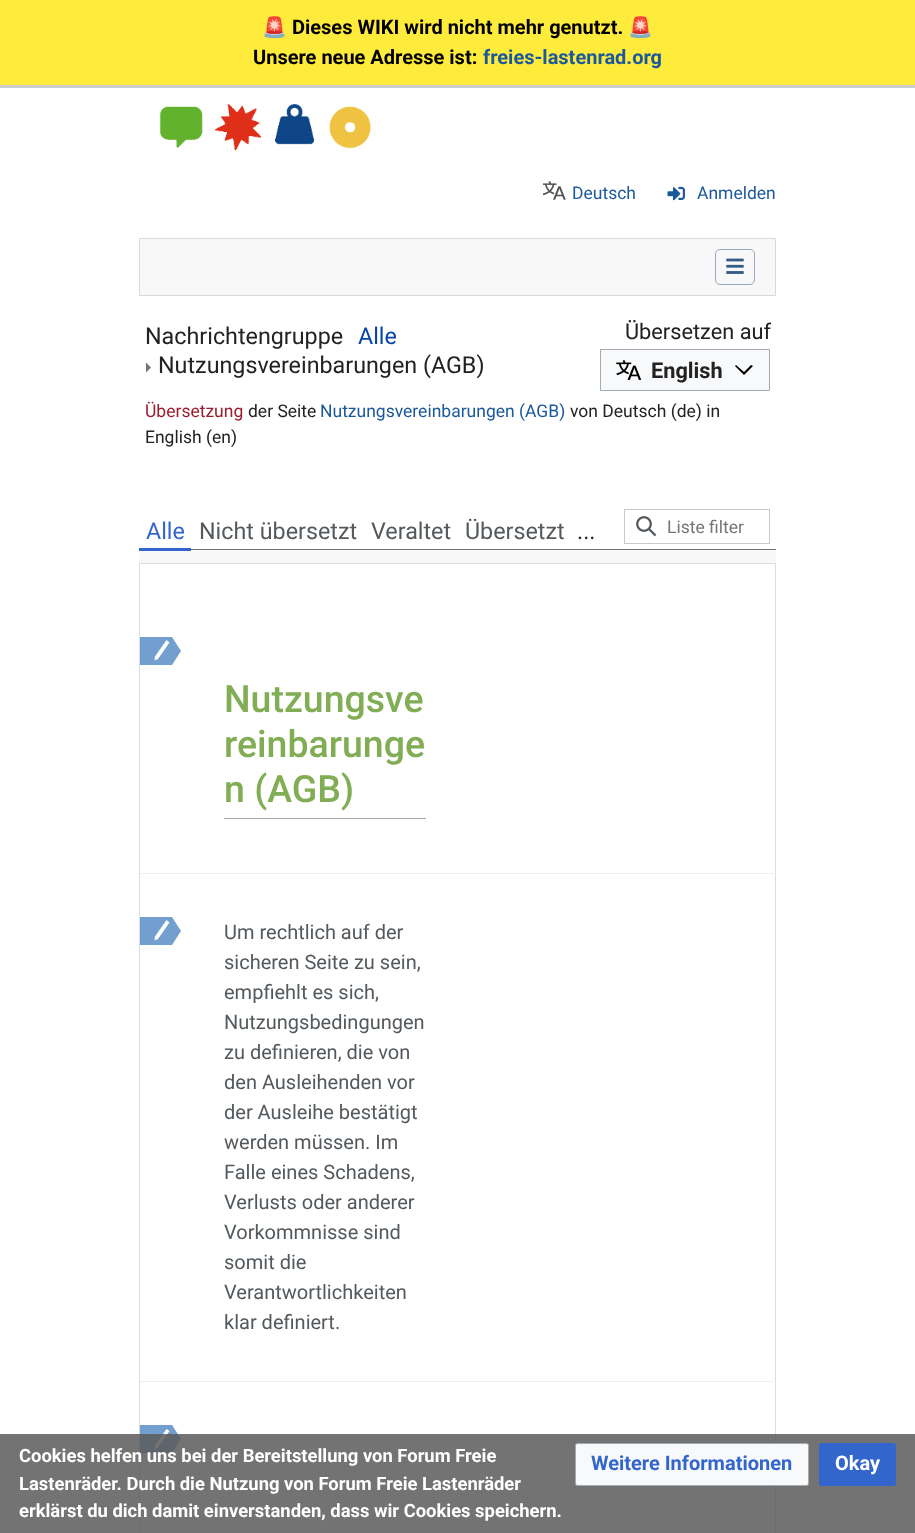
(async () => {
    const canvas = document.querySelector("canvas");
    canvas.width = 915;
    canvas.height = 1533;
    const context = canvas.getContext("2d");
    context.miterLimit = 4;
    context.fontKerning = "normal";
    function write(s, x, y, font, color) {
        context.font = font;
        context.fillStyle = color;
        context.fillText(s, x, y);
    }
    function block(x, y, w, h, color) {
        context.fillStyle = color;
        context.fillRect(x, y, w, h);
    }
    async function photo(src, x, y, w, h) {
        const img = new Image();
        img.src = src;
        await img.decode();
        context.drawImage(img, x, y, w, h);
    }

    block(0, 0, 915, 1533, "rgb(255, 255, 255)");
    block(0, 0, 915, 85, "rgb(255, 235, 59)");
    block(0, 85, 915, 3, "rgb(204, 204, 204)");
    write("🚨", 262, 34, "bold 20px Noto Color Emoji", "rgb(0, 0, 0)");
    write("Dieses WIKI wird nicht mehr genutzt.", 292, 34, "bold 20px Roboto", "rgb(0, 0, 0)");
    write("🚨", 628, 34, "bold 20px Noto Color Emoji", "rgb(0, 0, 0)");
    write("Unsere neue Adresse ist:", 253, 64, "bold 20px Roboto", "rgb(0, 0, 0)");
    write("freies-lastenrad.org", 483, 64, "bold 20px Roboto", "rgb(27, 89, 155)");
    await photo("media/1.png", 159, 104, 212, 47);
    await photo("media/2.png", 543, 181, 23, 19);
    write("Deutsch", 572, 199, "17.5px Roboto", "rgb(27, 89, 155)");
    await photo("media/3.png", 667, 186, 18, 15);
    write("Anmelden", 697, 199, "17.5px Roboto", "rgb(27, 89, 155)");
    context.fillStyle = "rgb(248, 248, 248)";
    context.beginPath();
    context.rect(139.5, 238.5, 636, 57);
    context.fill();
    context.strokeStyle = "rgb(217, 217, 217)";
    context.stroke();
    context.beginPath();
    context.roundRect(715.5, 249.5, 39, 35, 4.5);
    context.strokeStyle = "rgb(151, 170, 190)";
    context.stroke();
    await photo("media/4.png", 726, 258, 18, 16);
    write("Nachrichtengruppe", 145, 344, "23.3px Roboto", "rgb(34, 34, 34)");
    write("Alle", 358, 344, "23.3px Roboto", "rgb(6, 69, 173)");
    context.fillStyle = "rgb(119, 119, 119)";
    context.beginPath();
    context.moveTo(146, 372.5);
    context.lineTo(146, 362.5);
    context.lineTo(151, 367.5);
    context.closePath();
    context.fill();
    write("Nutzungsvereinbarungen (AGB)", 158, 373, "23.3px Roboto", "rgb(34, 34, 34)");
    write("Übersetzen auf", 625, 339, "21.75px Roboto", "rgb(34, 34, 34)");
    context.fillStyle = "rgb(248, 249, 250)";
    context.beginPath();
    context.rect(600.5, 349.5, 169, 41);
    context.fill();
    context.strokeStyle = "rgb(162, 169, 177)";
    context.stroke();
    await photo("media/5.png", 616, 360, 25, 20);
    write("English", 651, 378, "bold 21.75px Roboto", "rgb(34, 34, 34)");
    context.fillStyle = "rgb(0, 0, 0)";
    context.beginPath();
    context.moveTo(753, 366);
    context.lineTo(751, 365);
    context.lineTo(744, 372);
    context.lineTo(736, 365);
    context.lineTo(735, 366);
    context.lineTo(744, 375);
    context.closePath();
    context.fill();
    write("Übersetzung", 145, 417, "17.5px Roboto", "rgb(155, 27, 47)");
    write("der Seite", 248, 417, "17.5px Roboto", "rgb(34, 34, 34)");
    write("Nutzungsvereinbarungen (AGB)", 320, 417, "17.5px Roboto", "rgb(27, 89, 155)");
    write("von Deutsch (de) in", 570, 417, "17.5px Roboto", "rgb(34, 34, 34)");
    write("English (en)", 145, 443, "17.5px Roboto", "rgb(34, 34, 34)");
    block(191, 549, 585, 1, "rgb(119, 119, 119)");
    block(139, 550, 637, 13, "rgb(248, 248, 248)");
    block(139, 548, 52, 3, "rgb(51, 102, 204)");
    write("Alle", 146, 539, "23.3px Roboto", "rgb(51, 102, 204)");
    write("Nicht übersetzt", 199, 539, "23.3px Roboto", "rgb(84, 89, 93)");
    write("Veraltet", 371, 539, "23.3px Roboto", "rgb(84, 89, 93)");
    write("Übersetzt", 465, 539, "23.3px Roboto", "rgb(84, 89, 93)");
    write("...", 577, 539, "23.3px Roboto", "rgb(33, 37, 41)");
    await photo("media/6.png", 636, 516, 21, 21);
    context.strokeStyle = "rgb(201, 201, 201)";
    context.strokeRect(624.5, 509.5, 145, 34);
    write("Liste filter", 667, 533, "17.5px Roboto", "rgb(117, 117, 117)");
    block(139, 563, 637, 1, "rgb(221, 221, 221)");
    block(775, 563, 1, 970, "rgb(221, 221, 221)");
    block(139, 873, 637, 1, "rgb(240, 240, 240)");
    block(139, 563, 1, 311, "rgb(221, 221, 221)");
    context.fillStyle = "rgb(114, 159, 207)";
    context.beginPath();
    context.moveTo(140, 637);
    context.lineTo(172, 637);
    context.lineTo(181, 651);
    context.lineTo(172, 665);
    context.lineTo(140, 665);
    context.closePath();
    context.fill();
    context.fillStyle = "rgb(255, 255, 255)";
    context.beginPath();
    context.moveTo(166.5, 640);
    context.lineTo(155, 656.5);
    context.lineTo(154.5, 660.5);
    context.lineTo(158, 659);
    context.lineTo(169.5, 642.5);
    context.closePath();
    context.fill();
    block(224, 818, 202, 1, "rgb(162, 169, 177)");
    write("Nutzungsve", 224, 712, "500 37.5px Roboto", "rgb(129, 173, 84)");
    write("reinbarunge", 224, 757, "500 37.5px Roboto", "rgb(129, 173, 84)");
    write("n (AGB)", 224, 802, "500 37.5px Roboto", "rgb(129, 173, 84)");
    block(139, 1381, 637, 1, "rgb(240, 240, 240)");
    block(139, 874, 1, 659, "rgb(221, 221, 221)");
    context.fillStyle = "rgb(114, 159, 207)";
    context.beginPath();
    context.moveTo(140, 917);
    context.lineTo(172, 917);
    context.lineTo(181, 931);
    context.lineTo(172, 945);
    context.lineTo(140, 945);
    context.closePath();
    context.fill();
    context.fillStyle = "rgb(255, 255, 255)";
    context.beginPath();
    context.moveTo(166.5, 920);
    context.lineTo(155, 936.5);
    context.lineTo(154.5, 940.5);
    context.lineTo(158, 939);
    context.lineTo(169.5, 922.5);
    context.closePath();
    context.fill();
    write("Um rechtlich auf der", 224, 939, "20px Roboto", "rgb(84, 89, 93)");
    write("sicheren Seite zu sein,", 224, 969, "20px Roboto", "rgb(84, 89, 93)");
    write("empfiehlt es sich,", 224, 999, "20px Roboto", "rgb(84, 89, 93)");
    write("Nutzungsbedingungen", 224, 1029, "20px Roboto", "rgb(84, 89, 93)");
    write("zu definieren, die von", 224, 1059, "20px Roboto", "rgb(84, 89, 93)");
    write("den Ausleihenden vor", 224, 1089, "20px Roboto", "rgb(84, 89, 93)");
    write("der Ausleihe bestätigt", 224, 1119, "20px Roboto", "rgb(84, 89, 93)");
    write("werden müssen. Im", 224, 1149, "20px Roboto", "rgb(84, 89, 93)");
    write("Falle eines Schadens,", 224, 1179, "20px Roboto", "rgb(84, 89, 93)");
    write("Verlusts oder anderer", 224, 1209, "20px Roboto", "rgb(84, 89, 93)");
    write("Vorkommnisse sind", 224, 1239, "20px Roboto", "rgb(84, 89, 93)");
    write("somit die", 224, 1269, "20px Roboto", "rgb(84, 89, 93)");
    write("Verantwortlichkeiten", 224, 1299, "20px Roboto", "rgb(84, 89, 93)");
    write("klar definiert.", 224, 1329, "20px Roboto", "rgb(84, 89, 93)");
    context.fillStyle = "rgb(114, 159, 207)";
    context.beginPath();
    context.moveTo(140, 1425);
    context.lineTo(172, 1425);
    context.lineTo(181, 1439);
    context.lineTo(172, 1453);
    context.lineTo(140, 1453);
    context.closePath();
    context.fill();
    context.fillStyle = "rgb(255, 255, 255)";
    context.beginPath();
    context.moveTo(166.5, 1429);
    context.lineTo(155, 1445.5);
    context.lineTo(154.5, 1449.5);
    context.lineTo(158, 1447.5);
    context.lineTo(169.5, 1431);
    context.closePath();
    context.fill();
    block(0, 1434, 915, 99, "rgba(90, 90, 90, 0.85)");
    write("Cookies helfen uns bei der Bereitstellung von Forum Freie", 19, 1462, "bold 18.4px Roboto", "rgb(255, 255, 255)");
    write("Lastenräder. Durch die Nutzung von Forum Freie Lastenräder", 19, 1490, "bold 18.4px Roboto", "rgb(255, 255, 255)");
    write("erklärst du dich damit einverstanden, dass wir Cookies speichern.", 19, 1517, "bold 18.4px Roboto", "rgb(255, 255, 255)");
    context.fillStyle = "rgb(248, 249, 250)";
    context.beginPath();
    context.roundRect(575.5, 1443.5, 233, 42, 2);
    context.fill();
    context.strokeStyle = "rgb(162, 169, 177)";
    context.stroke();
    write("Weitere Informationen", 591, 1470, "bold 20px Roboto", "rgb(51, 102, 204)");
    context.beginPath();
    context.roundRect(819.5, 1443.5, 76, 42, 2);
    context.fill();
    context.strokeStyle = "rgb(51, 102, 204)";
    context.stroke();
    write("Okay", 835, 1470, "bold 20px Roboto", "rgb(255, 255, 255)");
})();
